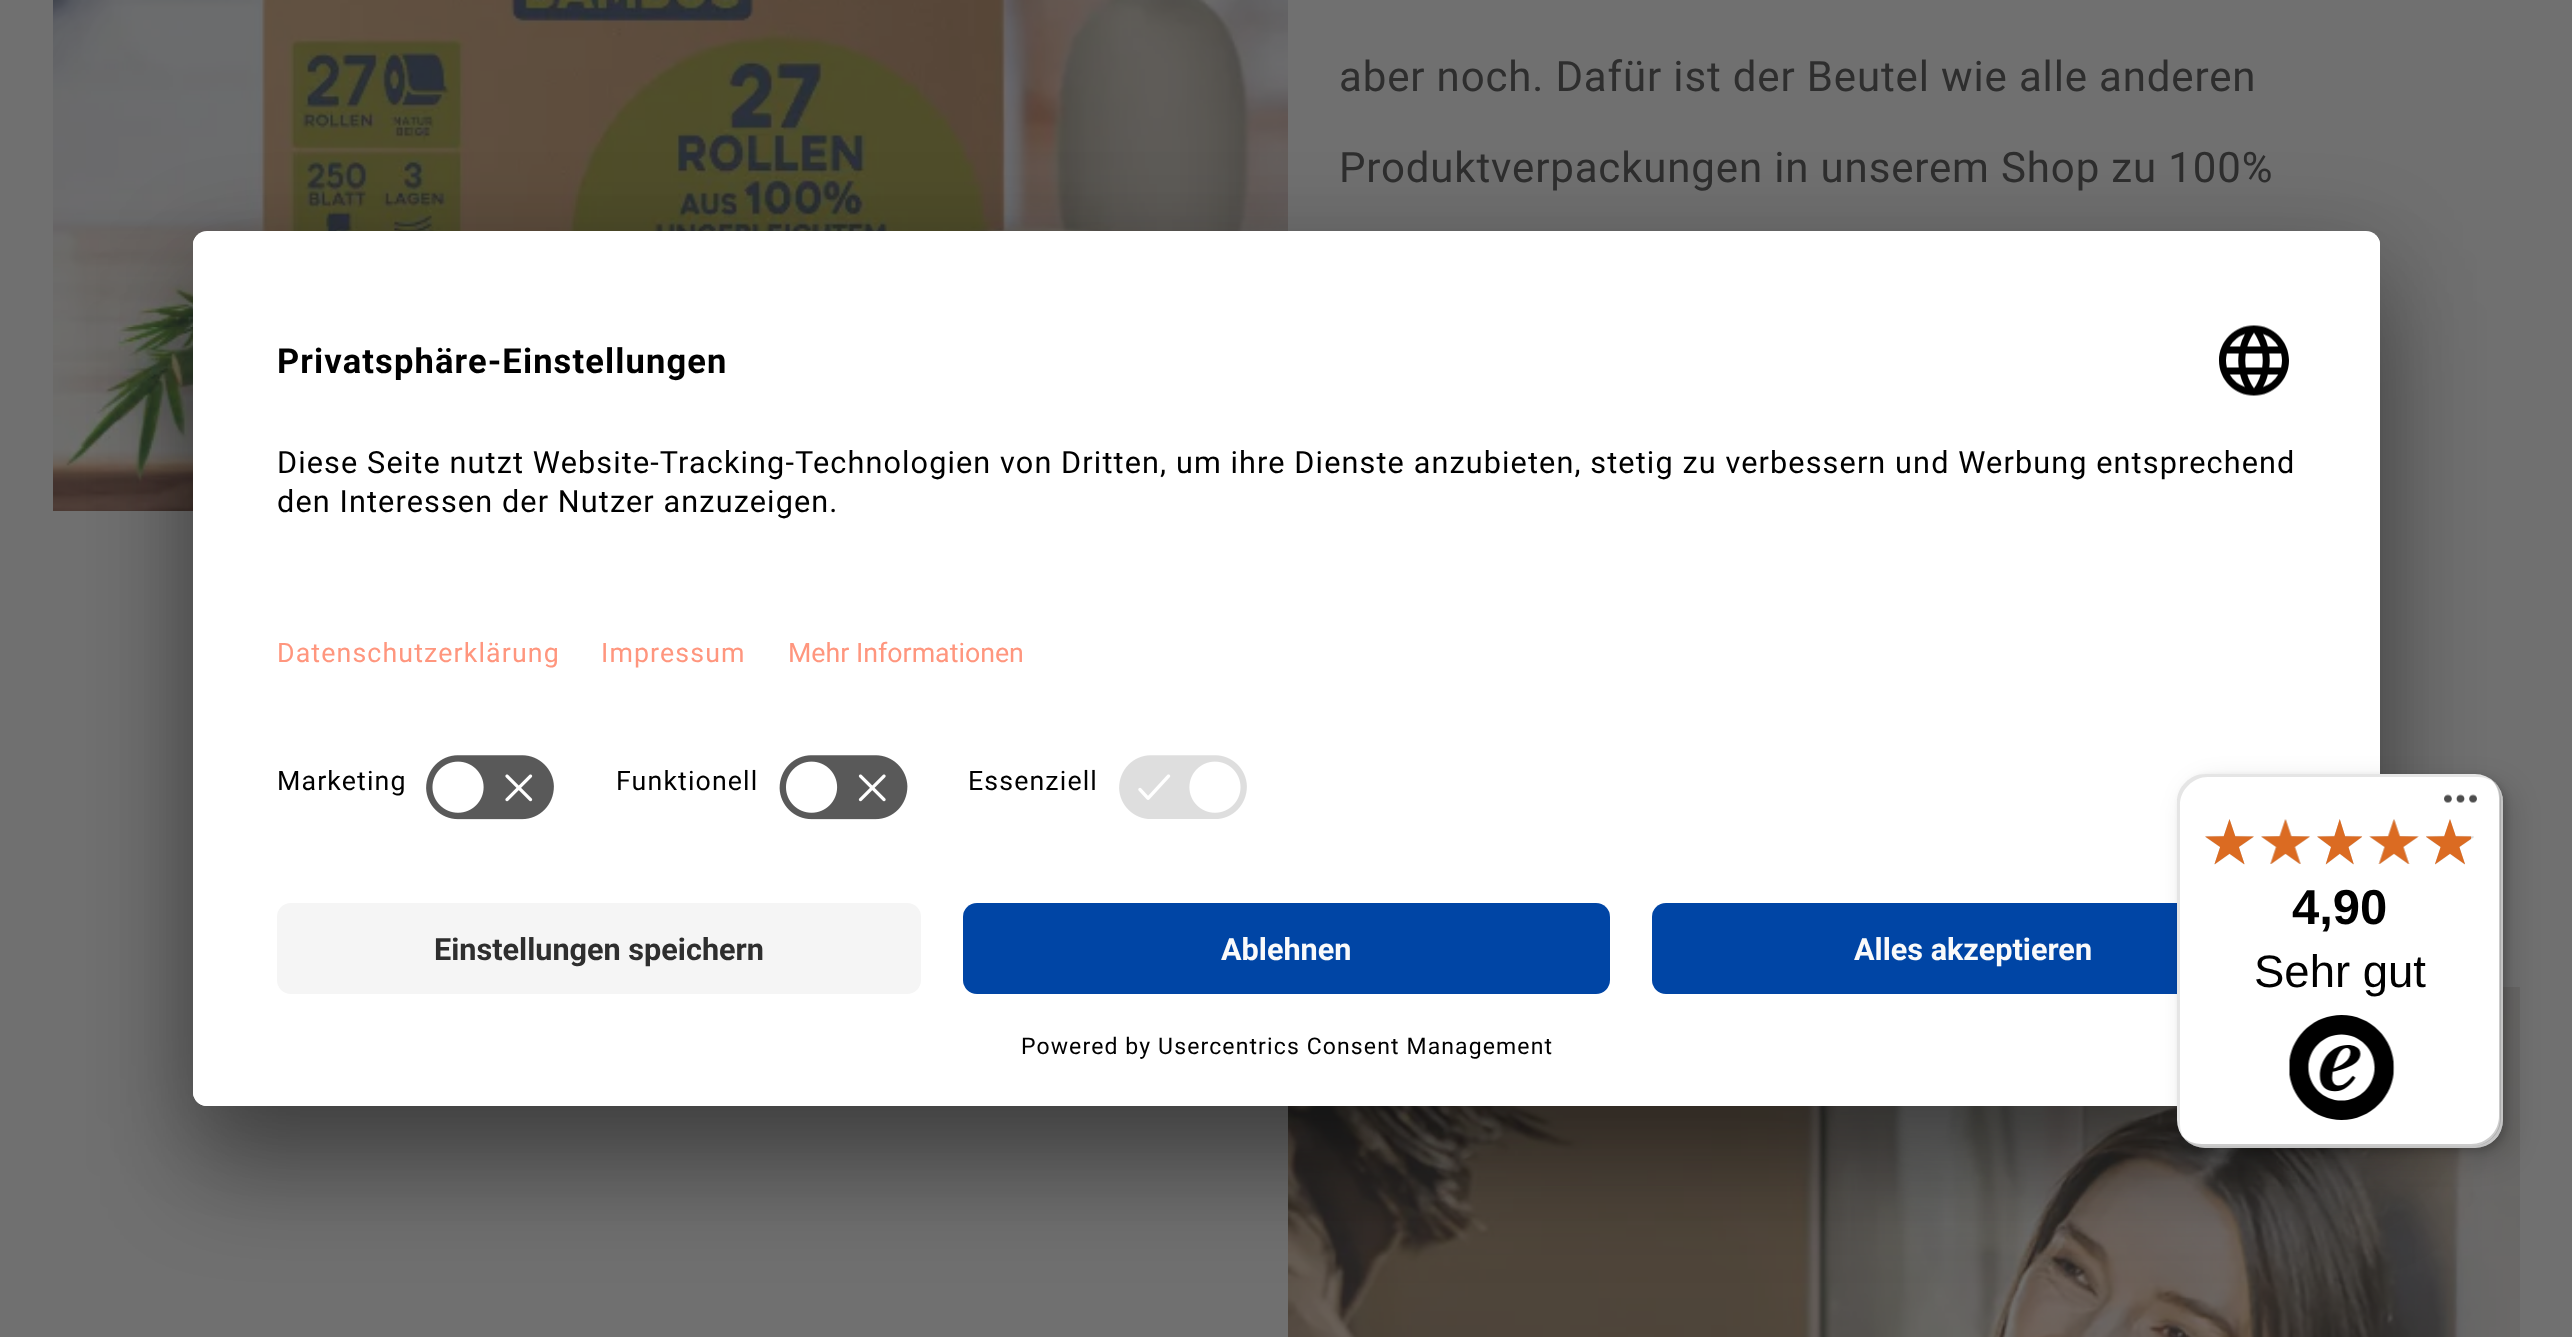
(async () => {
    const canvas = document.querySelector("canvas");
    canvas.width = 2572;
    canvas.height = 1337;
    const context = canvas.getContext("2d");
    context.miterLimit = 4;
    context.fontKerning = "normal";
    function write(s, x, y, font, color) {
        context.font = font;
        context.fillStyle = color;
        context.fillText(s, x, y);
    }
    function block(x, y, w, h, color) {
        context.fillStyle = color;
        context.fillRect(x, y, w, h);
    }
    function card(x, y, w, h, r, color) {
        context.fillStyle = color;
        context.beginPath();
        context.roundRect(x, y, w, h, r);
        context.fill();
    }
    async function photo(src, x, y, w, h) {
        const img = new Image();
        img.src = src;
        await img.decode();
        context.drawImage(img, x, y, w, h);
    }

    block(0, 0, 2572, 1337, "rgb(112, 112, 112)");
    await photo("media/1.png", 53, 0, 1235, 511);
    context.letterSpacing = "0.85px";
    write("aber noch. Dafür ist der Beutel wie alle anderen", 1339, 91, "42px Roboto", "rgb(46, 46, 46)");
    write("Produktverpackungen in unserem Shop zu 100%", 1339, 182, "42px Roboto", "rgb(46, 46, 46)");
    await photo("media/2.png", 1288, 987, 1232, 350);
    context.fillStyle = "rgba(0, 0, 0, 0.3)";
    context.filter = "blur(49px)";
    context.beginPath();
    context.roundRect(193, 301, 2187, 875, 14);
    context.fill();
    context.filter = "none";
    context.fillStyle = "rgba(0, 0, 0, 0.22)";
    context.filter = "blur(45.5px)";
    context.beginPath();
    context.roundRect(193, 249, 2187, 875, 14);
    context.fill();
    context.filter = "none";
    card(193, 231, 2187, 875, 14, "rgb(255, 255, 255)");
    context.save();
    context.beginPath();
    context.roundRect(193, 231, 2187, 875, 14);
    context.clip();
    context.beginPath();
    context.roundRect(193, 231, 2187, 644, [14, 14, 0, 0]);
    context.clip();
    block(193, 235, 2187, 640, "rgb(255, 255, 255)");
    block(193, 235, 2187, 500, "rgb(255, 255, 255)");
    context.restore();
    context.letterSpacing = "1.12px";
    write("Privatsphäre-Einstellungen", 277, 373, "bold 34.5px Roboto", "rgb(0, 0, 0)");
    await photo("media/3.png", 2219, 325, 70, 71);
    write("Diese Seite nutzt Website-Tracking-Technologien von Dritten, um ihre Dienste anzubieten, stetig zu verbessern und Werbung entsprechend", 277, 473, "30.62px Roboto", "rgb(0, 0, 0)");
    write("den Interessen der Nutzer anzuzeigen.", 277, 512, "30.62px Roboto", "rgb(0, 0, 0)");
    write("Datenschutzerklärung", 277, 662, "26.75px Roboto", "rgb(255, 150, 126)");
    write("Impressum", 601, 662, "26.75px Roboto", "rgb(255, 150, 126)");
    context.letterSpacing = "0px";
    write("Mehr Informationen", 788, 662, "26.75px Roboto", "rgb(255, 150, 126)");
    context.letterSpacing = "1.12px";
    write("Marketing", 277, 790, "26.75px Roboto", "rgb(0, 0, 0)");
    await photo("media/4.png", 426, 755, 128, 65);
    write("Funktionell", 616, 790, "26.75px Roboto", "rgb(0, 0, 0)");
    await photo("media/5.png", 779, 755, 129, 65);
    write("Essenziell", 968, 790, "26.75px Roboto", "rgb(0, 0, 0)");
    await photo("media/6.png", 1119, 755, 128, 64);
    context.fillStyle = "rgb(255, 255, 255)";
    context.beginPath();
    context.roundRect(193, 875, 2187, 231, [0, 0, 14, 14]);
    context.fill();
    card(277, 903, 644, 91, 14, "rgb(245, 245, 245)");
    context.letterSpacing = "0px";
    write("Einstellungen speichern", 434, 960, "bold 30.62px Roboto", "rgb(46, 46, 46)");
    card(963, 903, 647, 91, 14, "rgb(0, 69, 165)");
    write("Ablehnen", 1221, 960, "bold 30.62px Roboto", "rgb(250, 250, 250)");
    card(1652, 903, 644, 91, 14, "rgb(0, 69, 165)");
    write("Alles akzeptieren", 1854, 960, "bold 30.62px Roboto", "rgb(250, 250, 250)");
    context.letterSpacing = "1.12px";
    write("Powered by Usercentrics Consent Management", 1021, 1054, "23px Roboto", "rgb(0, 0, 0)");
    context.fillStyle = "rgba(0, 0, 0, 0.15)";
    context.filter = "blur(14px)";
    context.beginPath();
    context.roundRect(2188, 784, 325, 375, 28);
    context.fill();
    context.filter = "none";
    context.filter = "blur(3.5px)";
    context.beginPath();
    context.roundRect(2181, 777, 325, 375, 28);
    context.fill();
    context.filter = "none";
    card(2177, 774, 326, 374, 28, "rgb(255, 255, 255)");
    context.fillStyle = "rgba(0, 0, 0, 0.1)";
    context.beginPath();
    context.moveTo(2208, 777);
    context.lineTo(2478, 777);
    context.bezierCurveTo(2485, 777, 2492, 780, 2497, 785);
    context.bezierCurveTo(2492, 778, 2484, 774, 2475, 774);
    context.lineTo(2205, 774);
    context.bezierCurveTo(2190, 774, 2177, 787, 2177, 802);
    context.lineTo(2177, 1120);
    context.bezierCurveTo(2177, 1128, 2180, 1135, 2185, 1140);
    context.bezierCurveTo(2182, 1135, 2180, 1130, 2180, 1124);
    context.lineTo(2180, 805);
    context.bezierCurveTo(2180, 790, 2193, 777, 2208, 777);
    context.closePath();
    context.fill();
    context.fillStyle = "rgba(0, 0, 0, 0.2)";
    context.beginPath();
    context.moveTo(2182, 1136);
    context.bezierCurveTo(2187, 1143, 2196, 1148, 2205, 1148);
    context.lineTo(2475, 1148);
    context.bezierCurveTo(2490, 1148, 2503, 1135, 2503, 1120);
    context.lineTo(2503, 802);
    context.bezierCurveTo(2503, 793, 2499, 785, 2492, 780);
    context.bezierCurveTo(2496, 785, 2499, 791, 2499, 798);
    context.lineTo(2499, 1116);
    context.bezierCurveTo(2499, 1132, 2486, 1144, 2471, 1144);
    context.lineTo(2202, 1144);
    context.bezierCurveTo(2194, 1144, 2187, 1141, 2182, 1136);
    context.closePath();
    context.fill();
    context.fillStyle = "rgba(50, 50, 50, 0.2)";
    context.beginPath();
    context.moveTo(2184, 1139);
    context.bezierCurveTo(2190, 1145, 2197, 1148, 2205, 1148);
    context.lineTo(2475, 1148);
    context.bezierCurveTo(2490, 1148, 2503, 1135, 2503, 1120);
    context.lineTo(2503, 802);
    context.bezierCurveTo(2503, 794, 2499, 786, 2493, 781);
    context.bezierCurveTo(2498, 786, 2500, 792, 2500, 799);
    context.lineTo(2500, 1118);
    context.bezierCurveTo(2500, 1133, 2488, 1146, 2472, 1146);
    context.lineTo(2203, 1146);
    context.bezierCurveTo(2196, 1146, 2189, 1143, 2184, 1139);
    context.closePath();
    context.fill();
    context.fillStyle = "rgba(255, 255, 255, 0.3)";
    context.beginPath();
    context.moveTo(2184, 1139);
    context.bezierCurveTo(2189, 1144, 2197, 1148, 2205, 1148);
    context.lineTo(2475, 1148);
    context.bezierCurveTo(2490, 1148, 2503, 1135, 2503, 1120);
    context.lineTo(2503, 802);
    context.bezierCurveTo(2503, 794, 2500, 787, 2494, 781);
    context.bezierCurveTo(2498, 786, 2501, 793, 2501, 800);
    context.lineTo(2501, 1118);
    context.bezierCurveTo(2501, 1134, 2488, 1146, 2473, 1146);
    context.lineTo(2203, 1146);
    context.bezierCurveTo(2196, 1146, 2189, 1143, 2184, 1139);
    context.closePath();
    context.fill();
    await photo("media/7.png", 2444, 794, 33, 9);
    await photo("media/8.png", 2205, 819, 49, 46);
    await photo("media/9.png", 2261, 819, 49, 45);
    await photo("media/10.png", 2317, 819, 45, 46);
    await photo("media/11.png", 2369, 819, 50, 45);
    await photo("media/12.png", 2426, 819, 48, 46);
    await photo("media/13.png", 2205, 819, 49, 46);
    await photo("media/14.png", 2261, 819, 49, 45);
    await photo("media/15.png", 2317, 819, 46, 46);
    await photo("media/16.png", 2369, 819, 50, 45);
    await photo("media/17.png", 2426, 819, 45, 46);
    context.letterSpacing = "0px";
    write("4,90", 2292, 924, "bold 49px Liberation Sans", "rgb(0, 0, 0)");
    write("Sehr gut", 2254, 987, "45.5px Liberation Sans", "rgb(0, 0, 0)");
    await photo("media/18.png", 2289, 1015, 106, 105);
})();
